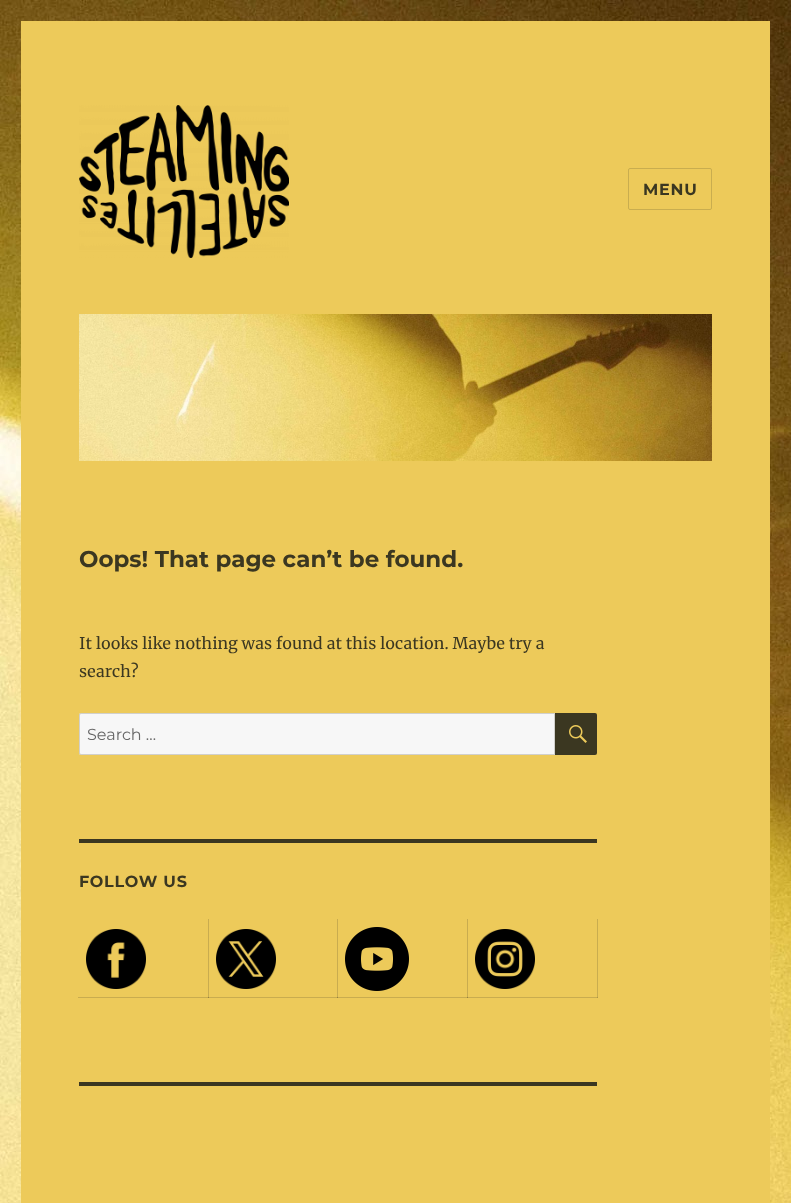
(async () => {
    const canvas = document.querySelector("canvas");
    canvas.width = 791;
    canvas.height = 1203;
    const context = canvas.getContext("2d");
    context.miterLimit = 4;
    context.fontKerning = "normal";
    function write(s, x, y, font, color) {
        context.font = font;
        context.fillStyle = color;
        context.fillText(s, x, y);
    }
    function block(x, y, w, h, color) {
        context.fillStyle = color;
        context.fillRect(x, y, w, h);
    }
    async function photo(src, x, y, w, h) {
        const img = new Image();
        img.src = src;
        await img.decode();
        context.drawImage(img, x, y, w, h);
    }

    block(0, 0, 791, 1203, "rgb(255, 255, 255)");
    await photo("media/1.png", 0, 0, 791, 1203);
    block(21, 21, 749, 1182, "rgb(237, 202, 90)");
    await photo("media/2.png", 79, 105, 210, 153);
    context.beginPath();
    context.roundRect(628.5, 168.5, 83, 41, 1.5);
    context.strokeStyle = "rgb(201, 173, 79)";
    context.stroke();
    context.letterSpacing = "0.75px";
    write("MENU", 643, 195, "100 16px Montserrat", "rgb(59, 55, 33)");
    await photo("media/3.png", 79, 314, 633, 147);
    context.letterSpacing = "0px";
    write("Oops! That page can’t be found.", 79, 567, "100 23px Montserrat", "rgb(59, 55, 33)");
    write("It looks like nothing was found at this location. Maybe try a", 79, 649, "16px Merriweather", "rgb(59, 55, 33)");
    write("search?", 79, 677, "16px Merriweather", "rgb(59, 55, 33)");
    context.fillStyle = "rgb(247, 247, 247)";
    context.beginPath();
    context.roundRect(79, 713, 476, 42, [2, 0, 0, 2]);
    context.fill();
    context.beginPath();
    context.roundRect(79.5, 713.5, 475, 41, [1.5, 0, 0, 1.5]);
    context.strokeStyle = "rgba(59, 55, 33, 0.2)";
    context.stroke();
    write("Search …", 87, 740, "100 16px 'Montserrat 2'", "rgb(104, 104, 104)");
    context.fillStyle = "rgb(59, 55, 33)";
    context.beginPath();
    context.roundRect(555, 713, 42, 42, [0, 2, 2, 0]);
    context.fill();
    await photo("media/4.png", 569, 725, 18, 18);
    block(79, 839, 518, 4, "rgb(59, 55, 33)");
    context.letterSpacing = "0.75px";
    write("FOLLOW US", 79, 887, "100 16px Montserrat", "rgb(59, 55, 33)");
    block(597, 919, 1, 79, "rgb(201, 173, 79)");
    block(467, 997, 131, 1, "rgba(59, 55, 33, 0.2)");
    block(467, 919, 1, 79, "rgba(59, 55, 33, 0.2)");
    block(337, 997, 131, 1, "rgba(59, 55, 33, 0.2)");
    block(337, 919, 1, 79, "rgba(59, 55, 33, 0.2)");
    block(208, 997, 130, 1, "rgba(59, 55, 33, 0.2)");
    block(208, 919, 1, 79, "rgba(59, 55, 33, 0.2)");
    block(78, 997, 131, 1, "rgba(59, 55, 33, 0.2)");
    await photo("media/5.png", 86, 929, 60, 60);
    await photo("media/6.png", 216, 929, 60, 60);
    await photo("media/7.png", 345, 927, 64, 64);
    await photo("media/8.png", 475, 929, 60, 60);
    block(79, 1082, 518, 4, "rgb(59, 55, 33)");
})();
